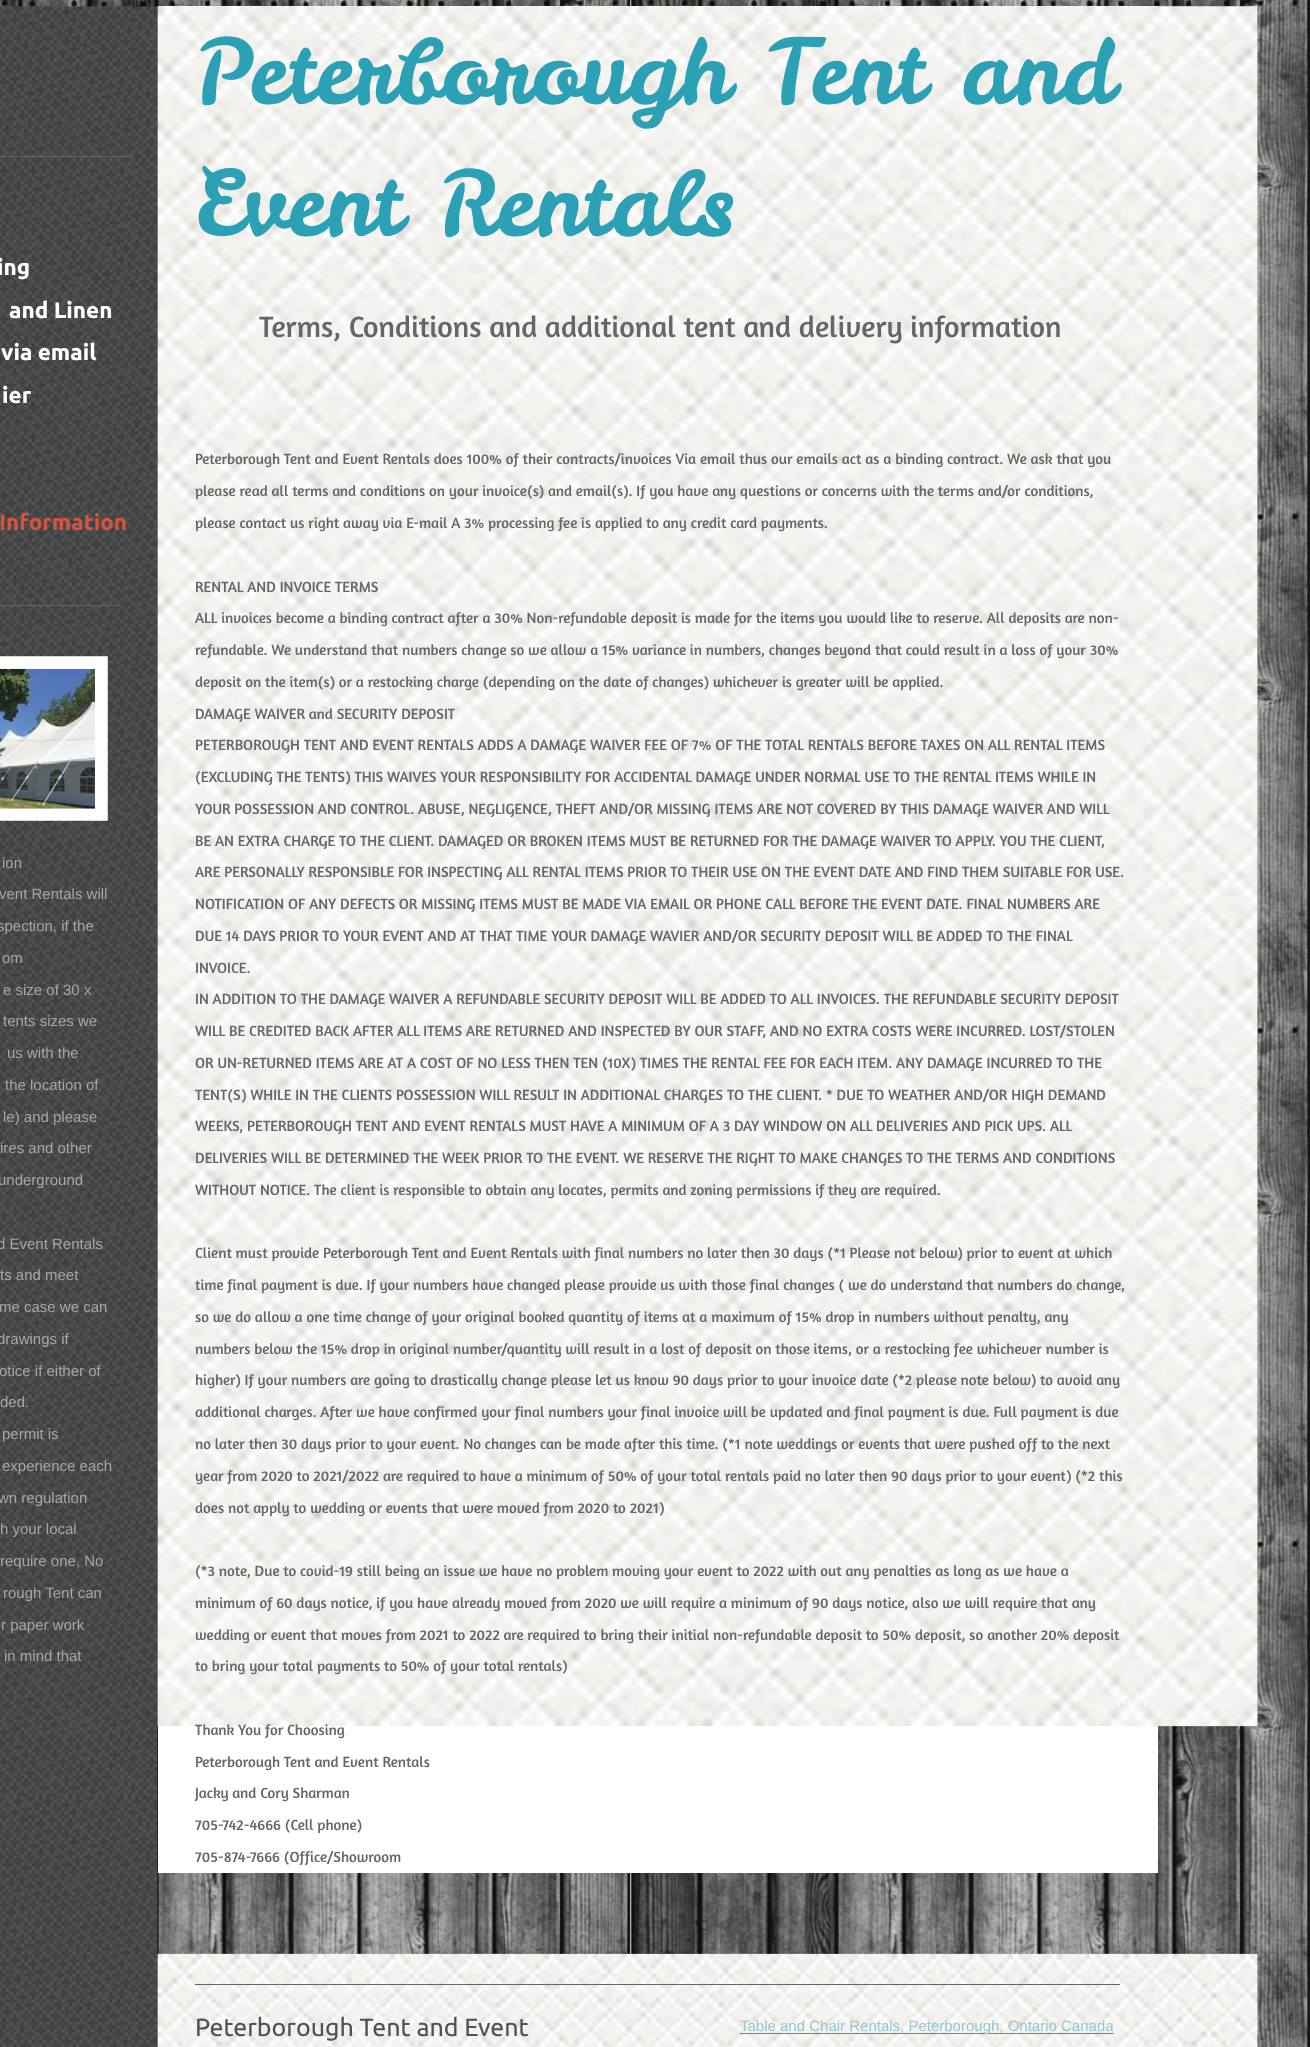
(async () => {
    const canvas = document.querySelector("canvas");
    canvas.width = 1310;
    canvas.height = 2047;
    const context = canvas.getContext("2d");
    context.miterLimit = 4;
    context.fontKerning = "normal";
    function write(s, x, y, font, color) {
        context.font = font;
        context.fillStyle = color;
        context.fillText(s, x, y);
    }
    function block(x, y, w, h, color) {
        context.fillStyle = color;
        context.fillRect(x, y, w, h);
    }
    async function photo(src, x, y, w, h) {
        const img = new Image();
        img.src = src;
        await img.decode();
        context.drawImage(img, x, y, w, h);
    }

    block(0, 0, 1310, 2047, "rgb(255, 255, 255)");
    await photo("media/1.png", 0, 0, 1310, 2047);
    await photo("media/2.png", 0, 6, 158, 2041);
    block(0, 156, 133, 1, "rgb(99, 100, 102)");
    write("ing", -3, 275, "bold 22.5px Ubuntu", "rgb(255, 255, 255)");
    write("and Linen", 9, 318, "bold 22.5px Ubuntu", "rgb(255, 255, 255)");
    write("via email", 1, 360, "bold 22.5px Ubuntu", "rgb(255, 255, 255)");
    write("ier", 2, 403, "bold 22.5px Ubuntu", "rgb(255, 255, 255)");
    write("Information", -1, 530, "bold 22.5px Ubuntu", "rgb(209, 85, 65)");
    block(0, 605, 120, 1, "rgb(99, 100, 102)");
    context.fillStyle = "rgb(255, 255, 255)";
    context.beginPath();
    context.rect(-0.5, 656.5, 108, 164);
    context.fill();
    context.strokeStyle = "rgb(217, 217, 217)";
    context.stroke();
    await photo("media/3.png", 0, 668, 95, 141);
    write("ion", 2, 868, "15px Liberation Sans", "rgb(167, 167, 167)");
    write("vent Rentals will", -1, 899, "15px Liberation Sans", "rgb(167, 167, 167)");
    write("spection, if the", -3, 931, "15px Liberation Sans", "rgb(167, 167, 167)");
    write("om", 2, 963, "15px Liberation Sans", "rgb(167, 167, 167)");
    write("e size of 30 x", 3, 995, "15px Liberation Sans", "rgb(167, 167, 167)");
    write("tents sizes we", 3, 1026, "15px Liberation Sans", "rgb(167, 167, 167)");
    write("us with the", 7, 1058, "15px Liberation Sans", "rgb(167, 167, 167)");
    write("the location of", 5, 1090, "15px Liberation Sans", "rgb(167, 167, 167)");
    write("le) and please", 3, 1122, "15px Liberation Sans", "rgb(167, 167, 167)");
    write("ires and other", 0, 1153, "15px Liberation Sans", "rgb(167, 167, 167)");
    write("underground", -2, 1185, "15px Liberation Sans", "rgb(167, 167, 167)");
    write("d Event Rentals", -3, 1249, "15px Liberation Sans", "rgb(167, 167, 167)");
    write("ts and meet", 0, 1280, "15px Liberation Sans", "rgb(167, 167, 167)");
    write("me case we can", -1, 1312, "15px Liberation Sans", "rgb(167, 167, 167)");
    write("drawings if", -3, 1344, "15px Liberation Sans", "rgb(167, 167, 167)");
    write("otice if either of", -1, 1376, "15px Liberation Sans", "rgb(167, 167, 167)");
    write("ded.", 0, 1407, "15px Liberation Sans", "rgb(167, 167, 167)");
    write("permit is", 2, 1439, "15px Liberation Sans", "rgb(167, 167, 167)");
    write("experience each", 2, 1471, "15px Liberation Sans", "rgb(167, 167, 167)");
    write("wn regulation", -2, 1503, "15px Liberation Sans", "rgb(167, 167, 167)");
    write("h your local", 0, 1534, "15px Liberation Sans", "rgb(167, 167, 167)");
    write("require one, No", 0, 1566, "15px Liberation Sans", "rgb(167, 167, 167)");
    write("rough Tent can", 3, 1598, "15px Liberation Sans", "rgb(167, 167, 167)");
    write("r paper work", 1, 1630, "15px Liberation Sans", "rgb(167, 167, 167)");
    write("in mind that", 4, 1661, "15px Liberation Sans", "rgb(167, 167, 167)");
    block(158, 6, 1000, 1867, "rgb(255, 255, 255)");
    await photo("media/4.png", 157, 6, 1101, 1721);
    await photo("media/5.png", 157, 6, 1101, 1721);
    write("Peterborough Tent and", 195, 104, "90px Leckerli One", "rgb(44, 161, 182)");
    write("Event Rentals", 195, 236, "90px Leckerli One", "rgb(44, 161, 182)");
    write("Terms, Conditions and additional tent and delivery information", 259, 337, "30px Amaranth", "rgb(102, 102, 102)");
    write("Peterborough Tent and Event Rentals does 100% of their contracts/invoices Via email thus our emails act as a binding contract. We ask that you", 195, 464, "15px Amaranth", "rgb(102, 102, 102)");
    write("please read all terms and conditions on your invoice(s) and email(s). If you have any questions or concerns with the terms and/or conditions,", 195, 496, "15px Amaranth", "rgb(102, 102, 102)");
    write("please contact us right away via E-mail A 3% processing fee is applied to any credit card payments.", 195, 528, "15px Amaranth", "rgb(102, 102, 102)");
    write("RENTAL AND INVOICE TERMS", 195, 592, "15px Amaranth", "rgb(102, 102, 102)");
    write("ALL invoices become a binding contract after a 30% Non-refundable deposit is made for the items you would like to reserve. All deposits are non-", 195, 623, "15px Amaranth", "rgb(102, 102, 102)");
    write("refundable. We understand that numbers change so we allow a 15% variance in numbers, changes beyond that could result in a loss of your 30%", 195, 655, "15px Amaranth", "rgb(102, 102, 102)");
    write("deposit on the item(s) or a restocking charge (depending on the date of changes) whichever is greater will be applied.", 195, 687, "15px Amaranth", "rgb(102, 102, 102)");
    write("DAMAGE WAIVER and SECURITY DEPOSIT", 195, 719, "15px Amaranth", "rgb(102, 102, 102)");
    write("PETERBOROUGH TENT AND EVENT RENTALS ADDS A DAMAGE WAIVER FEE OF 7% OF THE TOTAL RENTALS BEFORE TAXES ON ALL RENTAL ITEMS", 195, 750, "15px Amaranth", "rgb(102, 102, 102)");
    write("(EXCLUDING THE TENTS) THIS WAIVES YOUR RESPONSIBILITY FOR ACCIDENTAL DAMAGE UNDER NORMAL USE TO THE RENTAL ITEMS WHILE IN", 195, 782, "15px Amaranth", "rgb(102, 102, 102)");
    write("YOUR POSSESSION AND CONTROL. ABUSE, NEGLIGENCE, THEFT AND/OR MISSING ITEMS ARE NOT COVERED BY THIS DAMAGE WAIVER AND WILL", 195, 814, "15px Amaranth", "rgb(102, 102, 102)");
    write("BE AN EXTRA CHARGE TO THE CLIENT. DAMAGED OR BROKEN ITEMS MUST BE RETURNED FOR THE DAMAGE WAIVER TO APPLY. YOU THE CLIENT,", 195, 846, "15px Amaranth", "rgb(102, 102, 102)");
    write("ARE PERSONALLY RESPONSIBLE FOR INSPECTING ALL RENTAL ITEMS PRIOR TO THEIR USE ON THE EVENT DATE AND FIND THEM SUITABLE FOR USE.", 195, 877, "15px Amaranth", "rgb(102, 102, 102)");
    write("NOTIFICATION OF ANY DEFECTS OR MISSING ITEMS MUST BE MADE VIA EMAIL OR PHONE CALL BEFORE THE EVENT DATE. FINAL NUMBERS ARE", 195, 909, "15px Amaranth", "rgb(102, 102, 102)");
    write("DUE 14 DAYS PRIOR TO YOUR EVENT AND AT THAT TIME YOUR DAMAGE WAVIER AND/OR SECURITY DEPOSIT WILL BE ADDED TO THE FINAL", 195, 941, "15px Amaranth", "rgb(102, 102, 102)");
    write("INVOICE.", 195, 973, "15px Amaranth", "rgb(102, 102, 102)");
    write("IN ADDITION TO THE DAMAGE WAIVER A REFUNDABLE SECURITY DEPOSIT WILL BE ADDED TO ALL INVOICES. THE REFUNDABLE SECURITY DEPOSIT", 195, 1004, "15px Amaranth", "rgb(102, 102, 102)");
    write("WILL BE CREDITED BACK AFTER ALL ITEMS ARE RETURNED AND INSPECTED BY OUR STAFF, AND NO EXTRA COSTS WERE INCURRED. LOST/STOLEN", 195, 1036, "15px Amaranth", "rgb(102, 102, 102)");
    write("OR UN-RETURNED ITEMS ARE AT A COST OF NO LESS THEN TEN (10X) TIMES THE RENTAL FEE FOR EACH ITEM. ANY DAMAGE INCURRED TO THE", 195, 1068, "15px Amaranth", "rgb(102, 102, 102)");
    write("TENT(S) WHILE IN THE CLIENTS POSSESSION WILL RESULT IN ADDITIONAL CHARGES TO THE CLIENT. * DUE TO WEATHER AND/OR HIGH DEMAND", 195, 1100, "15px Amaranth", "rgb(102, 102, 102)");
    write("WEEKS, PETERBOROUGH TENT AND EVENT RENTALS MUST HAVE A MINIMUM OF A 3 DAY WINDOW ON ALL DELIVERIES AND PICK UPS. ALL", 195, 1131, "15px Amaranth", "rgb(102, 102, 102)");
    write("DELIVERIES WILL BE DETERMINED THE WEEK PRIOR TO THE EVENT. WE RESERVE THE RIGHT TO MAKE CHANGES TO THE TERMS AND CONDITIONS", 195, 1163, "15px Amaranth", "rgb(102, 102, 102)");
    write("WITHOUT NOTICE. The client is responsible to obtain any locates, permits and zoning permissions if they are required.", 195, 1195, "15px Amaranth", "rgb(102, 102, 102)");
    write("Client must provide Peterborough Tent and Event Rentals with final numbers no later then 30 days (*1 Please not below) prior to event at which", 195, 1258, "15px Amaranth", "rgb(102, 102, 102)");
    write("time final payment is due. If your numbers have changed please provide us with those final changes ( we do understand that numbers do change,", 195, 1290, "15px Amaranth", "rgb(102, 102, 102)");
    write("so we do allow a one time change of your original booked quantity of items at a maximum of 15% drop in numbers without penalty, any", 195, 1322, "15px Amaranth", "rgb(102, 102, 102)");
    write("numbers below the 15% drop in original number/quantity will result in a lost of deposit on those items, or a restocking fee whichever number is", 195, 1354, "15px Amaranth", "rgb(102, 102, 102)");
    write("higher) If your numbers are going to drastically change please let us know 90 days prior to your invoice date (*2 please note below) to avoid any", 195, 1385, "15px Amaranth", "rgb(102, 102, 102)");
    write("additional charges. After we have confirmed your final numbers your final invoice will be updated and final payment is due. Full payment is due", 195, 1417, "15px Amaranth", "rgb(102, 102, 102)");
    write("no later then 30 days prior to your event. No changes can be made after this time. (*1 note weddings or events that were pushed off to the next", 195, 1449, "15px Amaranth", "rgb(102, 102, 102)");
    write("year from 2020 to 2021/2022 are required to have a minimum of 50% of your total rentals paid no later then 90 days prior to your event) (*2 this", 195, 1481, "15px Amaranth", "rgb(102, 102, 102)");
    write("does not apply to wedding or events that were moved from 2020 to 2021)", 195, 1513, "15px Amaranth", "rgb(102, 102, 102)");
    write("(*3 note, Due to covid-19 still being an issue we have no problem moving your event to 2022 with out any penalties as long as we have a", 195, 1576, "15px Amaranth", "rgb(102, 102, 102)");
    write("minimum of 60 days notice, if you have already moved from 2020 we will require a minimum of 90 days notice, also we will require that any", 195, 1608, "15px Amaranth", "rgb(102, 102, 102)");
    write("wedding or event that moves from 2021 to 2022 are required to bring their initial non-refundable deposit to 50% deposit, so another 20% deposit", 195, 1640, "15px Amaranth", "rgb(102, 102, 102)");
    write("to bring your total payments to 50% of your total rentals)", 195, 1671, "15px Amaranth", "rgb(102, 102, 102)");
    write("Thank You for Choosing", 195, 1735, "15px Amaranth", "rgb(102, 102, 102)");
    write("Peterborough Tent and Event Rentals", 195, 1767, "15px Amaranth", "rgb(102, 102, 102)");
    write("Jacky and Cory Sharman", 195, 1798, "15px Amaranth", "rgb(102, 102, 102)");
    write("705-742-4666 (Cell phone)", 195, 1830, "15px Amaranth", "rgb(102, 102, 102)");
    write("705-874-7666 (Office/Showroom", 195, 1862, "15px Amaranth", "rgb(102, 102, 102)");
    await photo("media/6.png", 157, 1953, 1101, 94);
    await photo("media/7.png", 157, 1953, 1101, 94);
    block(195, 1984, 925, 1, "rgb(102, 102, 102)");
    write("Peterborough Tent and Event", 195, 2036, "25px Ubuntu", "rgb(81, 81, 81)");
    block(740, 2033, 374, 1, "rgb(208, 97, 79)");
    write("Table and Chair Rentals, Peterborough, Ontario Canada", 740, 2031, "15px Liberation Sans", "rgb(150, 197, 211)");
})();
